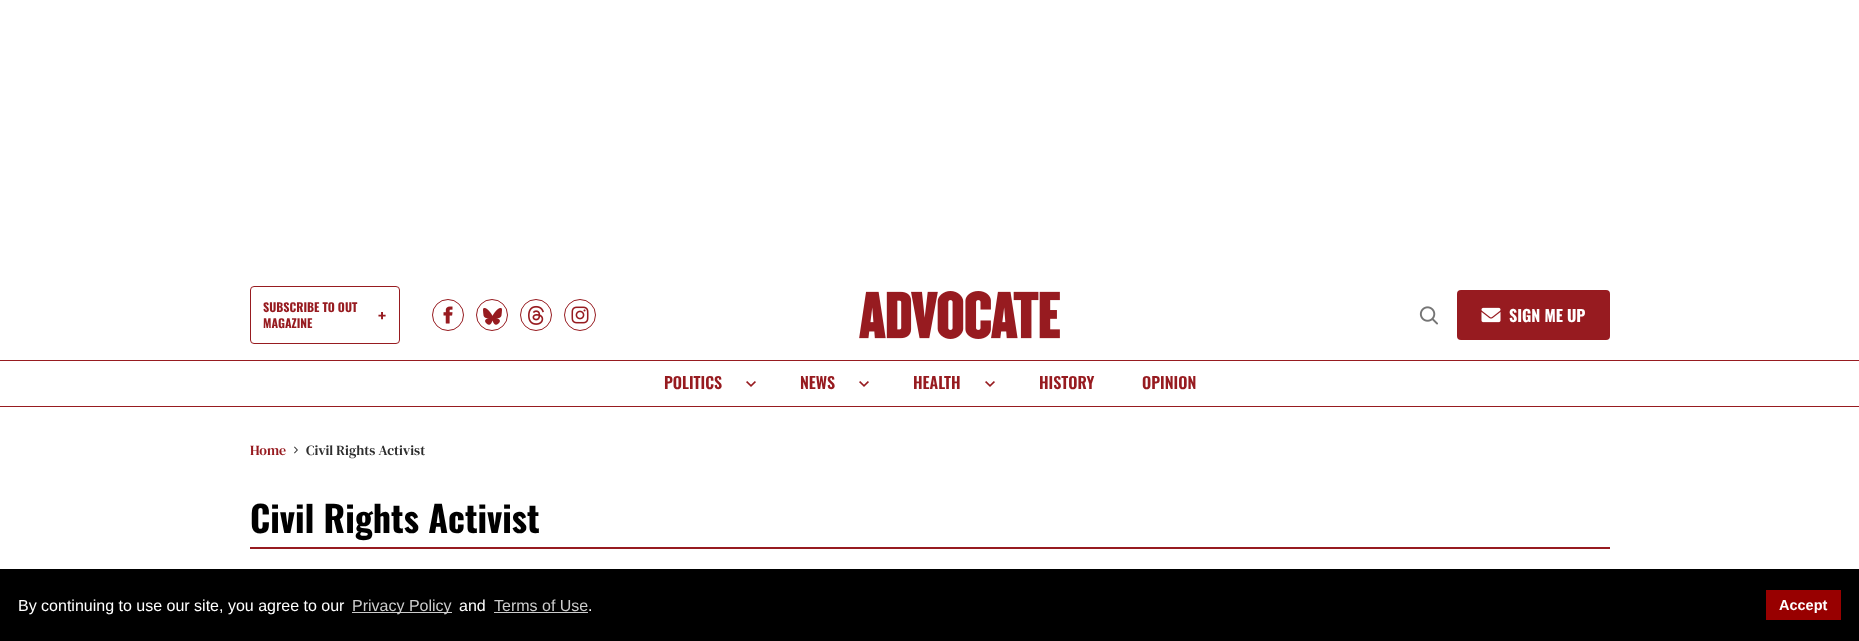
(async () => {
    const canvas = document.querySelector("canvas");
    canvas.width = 1859;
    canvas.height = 641;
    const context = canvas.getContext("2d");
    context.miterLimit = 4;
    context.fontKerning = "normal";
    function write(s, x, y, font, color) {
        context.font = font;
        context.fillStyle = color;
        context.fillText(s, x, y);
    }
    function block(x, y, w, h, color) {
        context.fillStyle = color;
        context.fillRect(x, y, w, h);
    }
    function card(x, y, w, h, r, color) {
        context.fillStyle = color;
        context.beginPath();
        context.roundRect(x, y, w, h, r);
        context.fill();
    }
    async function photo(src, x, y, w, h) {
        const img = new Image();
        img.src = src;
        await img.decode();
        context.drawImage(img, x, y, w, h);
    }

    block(0, 0, 1859, 641, "rgb(255, 255, 255)");
    block(0, 406, 1859, 1, "rgb(151, 27, 32)");
    context.beginPath();
    context.roundRect(250.5, 286.5, 149, 57, 3.5);
    context.strokeStyle = "rgb(151, 27, 32)";
    context.stroke();
    write("SUBSCRIBE TO OUT", 263, 312, "bold 12px Oswald", "rgb(151, 27, 32)");
    write("+", 378, 323, "bold 18px Oswald", "rgb(151, 27, 32)");
    write("MAGAZINE", 263, 328, "bold 12px Oswald", "rgb(151, 27, 32)");
    await photo("media/1.png", 443, 306, 10, 18);
    context.beginPath();
    context.arc(448, 315, 15.5, 0, Math.PI * 2);
    context.stroke();
    await photo("media/2.png", 483, 308, 19, 17);
    context.beginPath();
    context.arc(492, 315, 15.5, 0, Math.PI * 2);
    context.stroke();
    await photo("media/3.png", 528, 305, 16, 20);
    context.beginPath();
    context.arc(536, 315, 15.5, 0, Math.PI * 2);
    context.stroke();
    await photo("media/4.png", 571, 306, 18, 18);
    context.beginPath();
    context.arc(580, 315, 15.5, 0, Math.PI * 2);
    context.stroke();
    await photo("media/5.png", 859, 291, 201, 48);
    await photo("media/6.png", 1419, 306, 19, 19);
    card(1457, 290, 153, 50, 4, "rgb(151, 27, 32)");
    await photo("media/7.png", 1481, 307, 20, 16);
    write("SIGN ME UP", 1509, 322, "bold 16px Oswald", "rgb(255, 255, 255)");
    block(0, 360, 1859, 1, "rgb(151, 27, 32)");
    write("POLITICS", 664, 389, "600 16px Oswald", "rgb(151, 27, 32)");
    await photo("media/8.png", 746, 381, 10, 6);
    write("NEWS", 800, 389, "600 16px Oswald", "rgb(151, 27, 32)");
    await photo("media/8.png", 859, 381, 10, 6);
    write("HEALTH", 913, 389, "600 16px Oswald", "rgb(151, 27, 32)");
    await photo("media/8.png", 985, 381, 10, 6);
    write("HISTORY", 1039, 389, "600 16px Oswald", "rgb(151, 27, 32)");
    write("OPINION", 1142, 389, "600 16px Oswald", "rgb(151, 27, 32)");
    write("Home", 250, 455, "14px DM Serif Text", "rgb(151, 27, 32)");
    await photo("media/9.png", 294, 446, 4, 8);
    write("Civil Rights Activist", 306, 455, "14px DM Serif Text", "rgb(46, 46, 46)");
    block(250, 547, 1360, 2, "rgb(151, 27, 32)");
    write("Civil Rights Activist", 250, 533, "bold 36px Oswald", "rgb(0, 0, 0)");
    block(0, 569, 1859, 72, "rgb(0, 0, 0)");
    write("By continuing to use our site, you agree to our", 18, 611, "16px Liberation Sans", "rgb(255, 255, 255)");
    block(352, 612, 100, 1, "rgb(204, 204, 204)");
    write("Privacy Policy", 352, 611, "16px Liberation Sans", "rgb(204, 204, 204)");
    write("and", 459, 611, "16px Liberation Sans", "rgb(255, 255, 255)");
    write("Terms of Use", 494, 611, "16px Liberation Sans", "rgb(204, 204, 204)");
    block(494, 612, 94, 1, "rgb(204, 204, 204)");
    write(".", 588, 611, "16px Liberation Sans", "rgb(255, 255, 255)");
    block(1766, 590, 75, 30, "rgb(152, 0, 0)");
    write("Accept", 1779, 610, "bold 14.5px Liberation Sans", "rgb(255, 255, 255)");
})();
